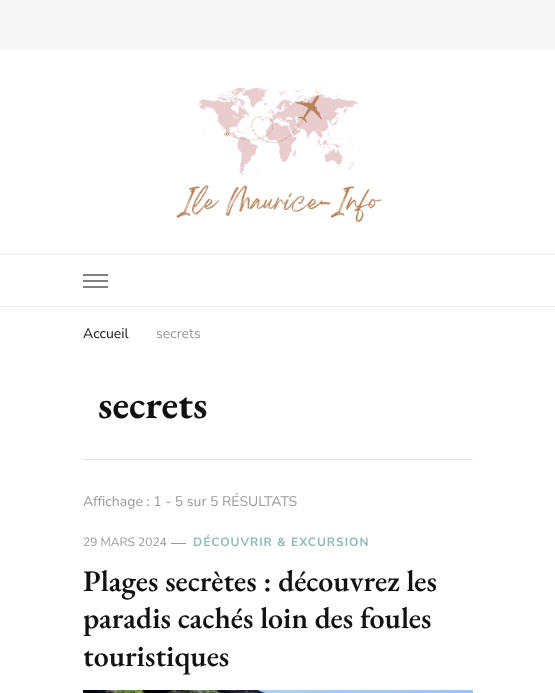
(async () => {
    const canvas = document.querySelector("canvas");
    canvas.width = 555;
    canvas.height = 693;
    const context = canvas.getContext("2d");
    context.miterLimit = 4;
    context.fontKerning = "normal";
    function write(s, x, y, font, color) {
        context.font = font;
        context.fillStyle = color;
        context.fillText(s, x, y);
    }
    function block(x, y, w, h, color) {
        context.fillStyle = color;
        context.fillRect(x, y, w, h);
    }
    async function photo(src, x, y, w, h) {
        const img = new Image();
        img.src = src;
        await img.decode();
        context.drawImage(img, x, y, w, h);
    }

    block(0, 0, 555, 693, "rgb(255, 255, 255)");
    block(0, 0, 555, 50, "rgb(247, 247, 247)");
    await photo("media/1.png", 176, 88, 206, 135);
    block(0, 254, 555, 1, "rgb(237, 237, 237)");
    block(0, 306, 555, 1, "rgb(237, 237, 237)");
    block(83, 274, 25, 2, "rgb(128, 128, 128)");
    block(83, 280, 25, 2, "rgb(128, 128, 128)");
    block(83, 286, 25, 2, "rgb(128, 128, 128)");
    write("Accueil", 83, 338, "14px Nunito Sans", "rgb(18, 18, 18)");
    write("secrets", 156, 338, "14px Nunito Sans", "rgb(153, 153, 153)");
    block(83, 459, 390, 1, "rgb(230, 230, 230)");
    write("secrets", 98, 418, "bold 40px EB Garamond", "rgb(18, 18, 18)");
    write("Affichage : 1 - 5 sur 5 RÉSULTATS", 83, 506, "14px Nunito Sans", "rgb(153, 153, 153)");
    write("29 MARS 2024", 83, 546, "12px Nunito Sans", "rgb(153, 153, 153)");
    block(171, 543, 15, 1, "rgb(153, 153, 153)");
    context.letterSpacing = "1px";
    write("DÉCOUVRIR & EXCURSION", 193, 546, "bold 12px Nunito Sans", "rgb(144, 186, 181)");
    context.letterSpacing = "0px";
    write("Plages secrètes : découvrez les", 83, 591, "600 30px EB Garamond", "rgb(18, 18, 18)");
    write("paradis cachés loin des foules", 83, 628, "600 30px EB Garamond", "rgb(18, 18, 18)");
    write("touristiques", 83, 666, "600 30px EB Garamond", "rgb(18, 18, 18)");
    await photo("media/2.png", 83, 690, 390, 3);
})();
